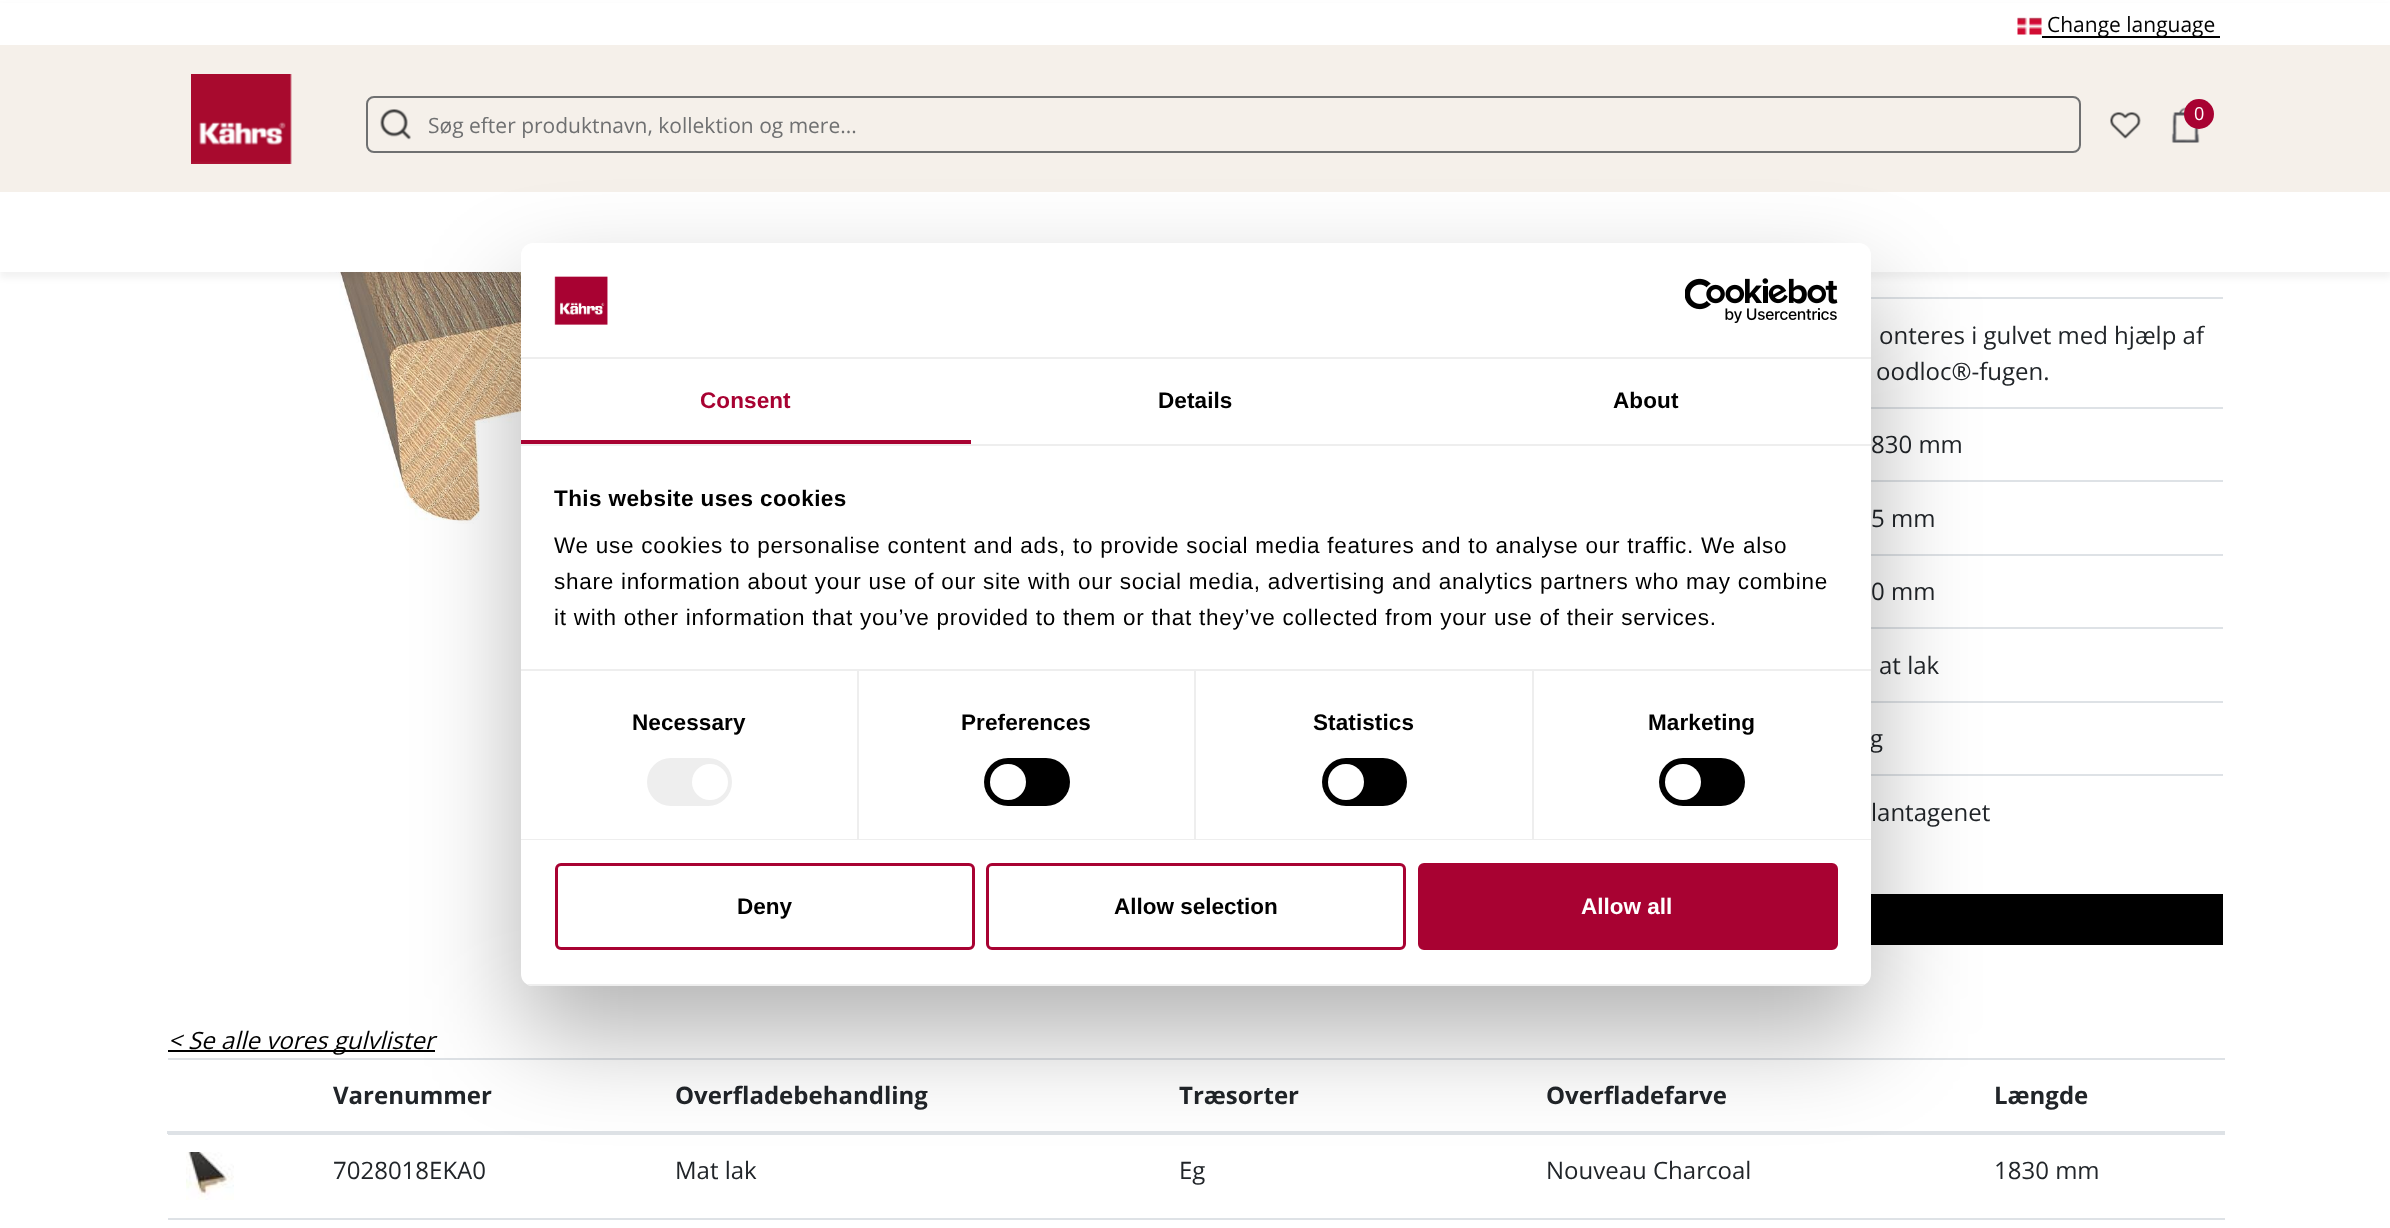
(async () => {
    const canvas = document.querySelector("canvas");
    canvas.width = 2390;
    canvas.height = 1228;
    const context = canvas.getContext("2d");
    context.miterLimit = 4;
    context.fontKerning = "normal";
    function write(s, x, y, font, color) {
        context.font = font;
        context.fillStyle = color;
        context.fillText(s, x, y);
    }
    function block(x, y, w, h, color) {
        context.fillStyle = color;
        context.fillRect(x, y, w, h);
    }
    function card(x, y, w, h, r, color) {
        context.fillStyle = color;
        context.beginPath();
        context.roundRect(x, y, w, h, r);
        context.fill();
    }
    async function photo(src, x, y, w, h) {
        const img = new Image();
        img.src = src;
        await img.decode();
        context.drawImage(img, x, y, w, h);
    }

    block(0, 0, 2390, 1228, "rgb(255, 255, 255)");
    await photo("media/6.png", 259, 272, 262, 252);
    context.fillStyle = "rgba(0, 0, 0, 0.05)";
    context.filter = "blur(3px)";
    context.beginPath();
    context.rect(0, 6, 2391, 272);
    context.fill();
    context.filter = "none";
    block(0, 3, 2390, 269, "rgb(255, 255, 255)");
    await photo("media/1.png", 2017, 17, 25, 18);
    block(2042, 36, 178, 2, "rgb(0, 0, 0)");
    write("Change language", 2047, 32, "21px Open Sans", "rgb(0, 0, 0)");
    block(0, 45, 2390, 147, "rgb(245, 240, 234)");
    await photo("media/2.png", 191, 74, 101, 90);
    context.beginPath();
    context.roundRect(367, 97, 1713, 55, 7);
    context.strokeStyle = "rgb(111, 112, 113)";
    context.lineWidth = 2;
    context.stroke();
    await photo("media/3.png", 380, 109, 31, 31);
    write("Søg efter produktnavn, kollektion og mere...", 428, 133, "21px Open Sans", "rgb(111, 112, 113)");
    await photo("media/4.png", 2110, 112, 31, 27);
    await photo("media/5.png", 2171, 107, 29, 36);
    context.fillStyle = "rgb(168, 2, 50)";
    context.beginPath();
    context.arc(2199, 114, 15, 0, Math.PI * 2);
    context.fill();
    write("0", 2194, 120, "18px Open Sans", "rgb(255, 255, 255)");
    block(1871, 297, 352, 2, "rgb(222, 226, 230)");
    write("onteres i gulvet med hjælp af", 1879, 344, "24px Open Sans", "rgb(33, 37, 41)");
    write("oodloc®-fugen.", 1876, 380, "24px Open Sans", "rgb(33, 37, 41)");
    block(1871, 407, 352, 2, "rgb(222, 226, 230)");
    write("830 mm", 1871, 453, "24px Open Sans", "rgb(33, 37, 41)");
    block(1871, 480, 352, 2, "rgb(222, 226, 230)");
    write("5 mm", 1871, 527, "24px Open Sans", "rgb(33, 37, 41)");
    block(1871, 554, 352, 2, "rgb(222, 226, 230)");
    write("0 mm", 1871, 600, "24px Open Sans", "rgb(33, 37, 41)");
    block(1871, 627, 352, 2, "rgb(222, 226, 230)");
    write("at lak", 1879, 674, "24px Open Sans", "rgb(33, 37, 41)");
    block(1871, 701, 352, 2, "rgb(222, 226, 230)");
    write("g", 1870, 747, "24px Open Sans", "rgb(33, 37, 41)");
    block(1871, 774, 352, 2, "rgb(222, 226, 230)");
    write("lantagenet", 1871, 821, "24px Open Sans", "rgb(33, 37, 41)");
    block(1871, 894, 352, 51, "rgb(0, 0, 0)");
    block(168, 1050, 267, 2, "rgb(0, 0, 0)");
    write("< Se alle vores gulvlister", 168, 1049, "italic 24px Open Sans", "rgb(0, 0, 0)");
    write("Varenummer", 333, 1104, "bold 24px Open Sans", "rgb(33, 37, 41)");
    write("Overfladebehandling", 675, 1104, "bold 24px Open Sans", "rgb(33, 37, 41)");
    write("Træsorter", 1179, 1104, "bold 24px Open Sans", "rgb(33, 37, 41)");
    write("Overfladefarve", 1546, 1104, "bold 24px Open Sans", "rgb(33, 37, 41)");
    block(168, 1058, 2057, 2, "rgb(222, 226, 230)");
    block(167, 1131, 2058, 3, "rgb(222, 226, 230)");
    write("Længde", 1994, 1104, "bold 24px Open Sans", "rgb(33, 37, 41)");
    await photo("media/7.png", 186, 1152, 48, 48);
    write("7028018EKA0", 333, 1179, "24px Open Sans", "rgb(33, 37, 41)");
    write("Mat lak", 675, 1179, "24px Open Sans", "rgb(33, 37, 41)");
    write("Eg", 1179, 1179, "24px Open Sans", "rgb(33, 37, 41)");
    write("Nouveau Charcoal", 1546, 1179, "24px Open Sans", "rgb(33, 37, 41)");
    block(168, 1134, 2057, 1, "rgb(222, 226, 230)");
    write("1830 mm", 1994, 1179, "24px Open Sans", "rgb(33, 37, 41)");
    block(168, 1218, 2057, 2, "rgb(222, 226, 230)");
    context.fillStyle = "rgba(0, 0, 0, 0.3)";
    context.filter = "blur(51px)";
    context.beginPath();
    context.roundRect(521, 291, 1350, 743, 12);
    context.fill();
    context.filter = "none";
    card(521, 243, 1350, 743, 12, "rgb(255, 255, 255)");
    block(521, 357, 1350, 2, "rgb(238, 238, 238)");
    await photo("media/8.png", 554, 276, 54, 49);
    await photo("media/9.png", 1685, 278, 153, 45);
    block(521, 444, 1350, 2, "rgb(238, 238, 238)");
    block(521, 440, 450, 4, "rgb(168, 2, 50)");
    context.letterSpacing = "0.1px";
    write("Consent", 700, 408, "bold 22.5px Liberation Sans", "rgb(168, 2, 50)");
    write("Details", 1158, 408, "bold 22.5px Liberation Sans", "rgb(0, 0, 0)");
    write("About", 1613, 408, "bold 22.5px Liberation Sans", "rgb(0, 0, 0)");
    block(521, 669, 1350, 2, "rgb(238, 238, 238)");
    context.letterSpacing = "0.4px";
    write("This website uses cookies", 554, 506, "bold 22.5px Liberation Sans", "rgb(0, 0, 0)");
    context.letterSpacing = "0.75px";
    write("We use cookies to personalise content and ads, to provide social media features and to analyse our traffic. We also", 554, 553, "22.5px Liberation Sans", "rgb(0, 0, 0)");
    write("share information about your use of our site with our social media, advertising and analytics partners who may combine", 554, 589, "22.5px Liberation Sans", "rgb(0, 0, 0)");
    write("it with other information that you’ve provided to them or that they’ve collected from your use of their services.", 554, 625, "22.5px Liberation Sans", "rgb(0, 0, 0)");
    block(521, 839, 1350, 1, "rgb(238, 238, 238)");
    block(857, 671, 2, 168, "rgb(238, 238, 238)");
    context.letterSpacing = "0.1px";
    write("Necessary", 632, 730, "bold 22.5px Liberation Sans", "rgb(0, 0, 0)");
    card(647, 758, 85, 48, 24, "rgb(238, 238, 238)");
    context.fillStyle = "rgb(255, 255, 255)";
    context.beginPath();
    context.arc(710, 782, 18, 0, Math.PI * 2);
    context.fill();
    block(1194, 671, 2, 168, "rgb(238, 238, 238)");
    write("Preferences", 961, 730, "bold 22.5px Liberation Sans", "rgb(0, 0, 0)");
    card(984, 758, 86, 48, 24, "rgb(0, 0, 0)");
    context.fillStyle = "rgb(255, 255, 255)";
    context.beginPath();
    context.arc(1008, 782, 18, 0, Math.PI * 2);
    context.fill();
    block(1532, 671, 2, 168, "rgb(238, 238, 238)");
    write("Statistics", 1313, 730, "bold 22.5px Liberation Sans", "rgb(0, 0, 0)");
    card(1322, 758, 85, 48, 24, "rgb(0, 0, 0)");
    context.fillStyle = "rgb(255, 255, 255)";
    context.beginPath();
    context.arc(1346, 782, 18, 0, Math.PI * 2);
    context.fill();
    write("Marketing", 1648, 730, "bold 22.5px Liberation Sans", "rgb(0, 0, 0)");
    card(1659, 758, 86, 48, 24, "rgb(0, 0, 0)");
    context.fillStyle = "rgb(255, 255, 255)";
    context.beginPath();
    context.arc(1683, 782, 18, 0, Math.PI * 2);
    context.fill();
    context.save();
    context.beginPath();
    context.roundRect(521, 243, 1350, 743, 12);
    context.clip();
    block(521, 984, 1350, 2, "rgb(238, 238, 238)");
    context.restore();
    context.beginPath();
    context.roundRect(556.5, 864.5, 417, 84, 4.5);
    context.strokeStyle = "rgb(168, 2, 50)";
    context.lineWidth = 3;
    context.stroke();
    context.letterSpacing = "0px";
    write("Deny", 737, 914, "bold 22.5px Liberation Sans", "rgb(0, 0, 0)");
    context.beginPath();
    context.roundRect(987.5, 864.5, 417, 84, 4.5);
    context.stroke();
    write("Allow selection", 1114, 914, "bold 22.5px Liberation Sans", "rgb(0, 0, 0)");
    context.fillStyle = "rgb(168, 2, 50)";
    context.beginPath();
    context.roundRect(1419.5, 864.5, 417, 84, 4.5);
    context.fill();
    context.stroke();
    write("Allow all", 1581, 914, "bold 22.5px Liberation Sans", "rgb(255, 255, 255)");
})();
